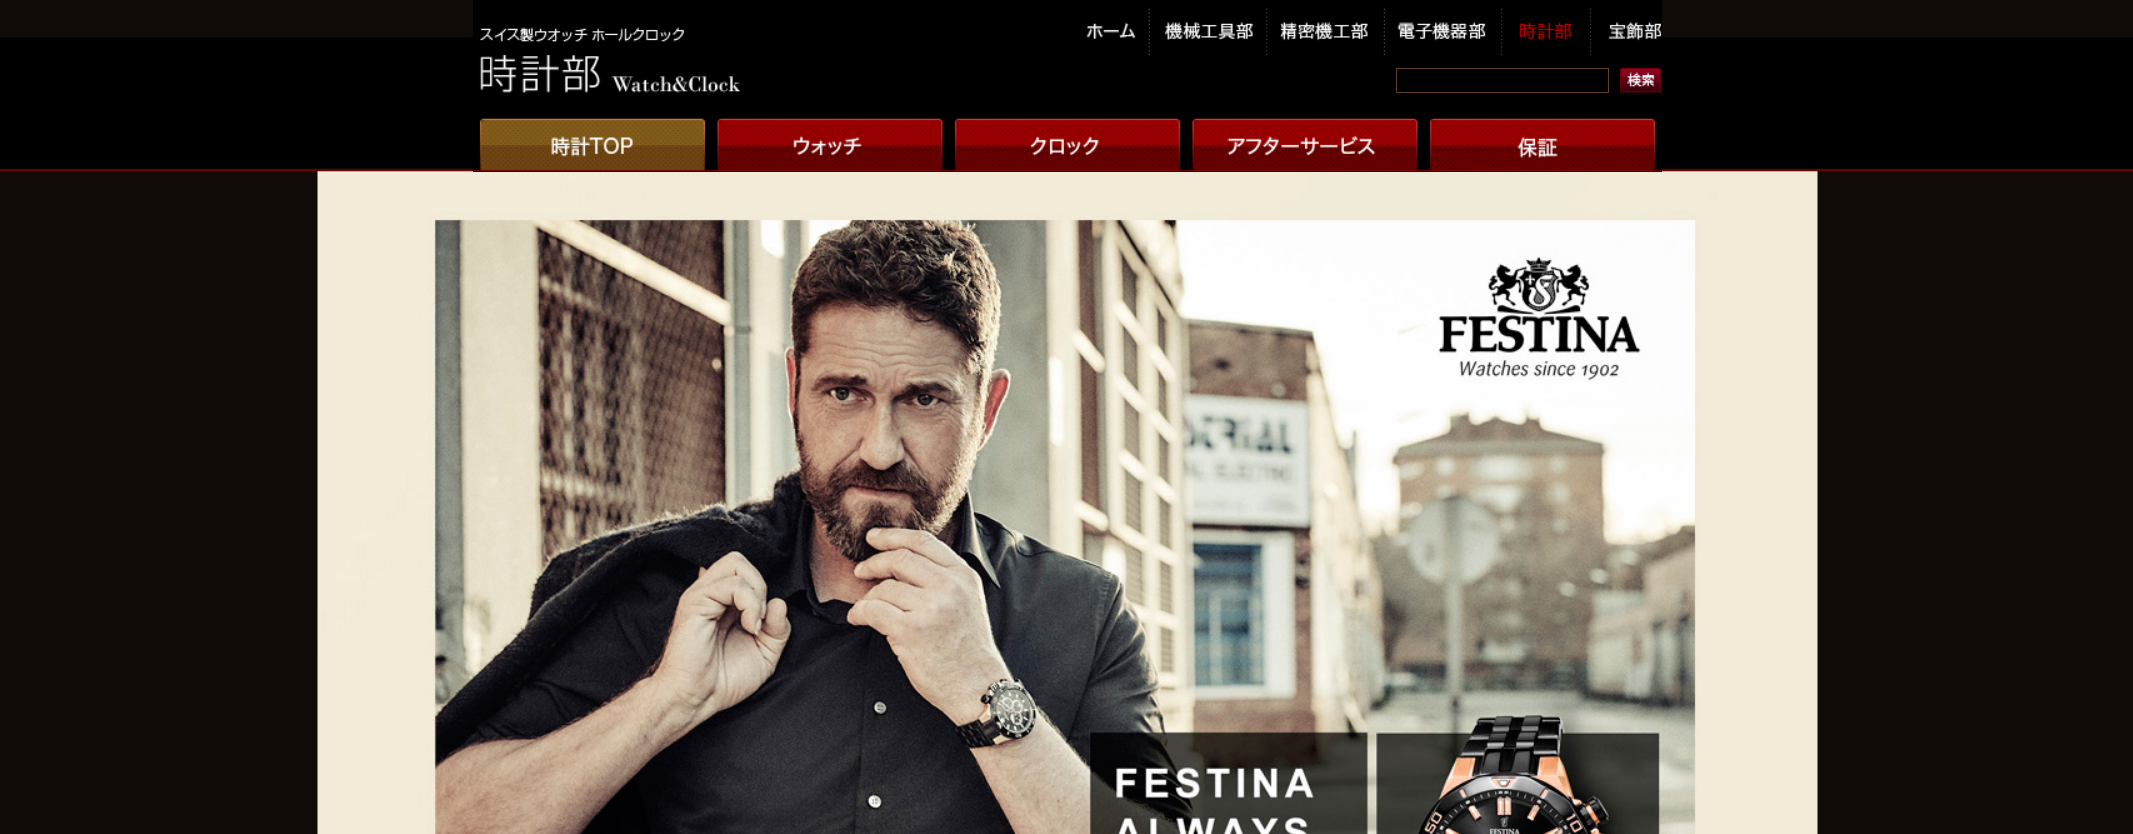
(async () => {
    const canvas = document.querySelector("canvas");
    canvas.width = 2133;
    canvas.height = 834;
    const context = canvas.getContext("2d");
    context.miterLimit = 4;
    context.fontKerning = "normal";
    function block(x, y, w, h, color) {
        context.fillStyle = color;
        context.fillRect(x, y, w, h);
    }
    async function photo(src, x, y, w, h) {
        const img = new Image();
        img.src = src;
        await img.decode();
        context.drawImage(img, x, y, w, h);
    }

    block(0, 0, 2133, 834, "rgb(17, 11, 7)");
    await photo("media/1.png", 0, 37, 2133, 135);
    await photo("media/2.png", 317, 171, 1501, 663);
    block(474, 37, 1187, 1, "rgb(0, 0, 0)");
    block(473, 0, 1189, 37, "rgb(0, 0, 0)");
    await photo("media/3.png", 479, 27, 262, 66);
    await photo("media/4.png", 1086, 8, 64, 48);
    await photo("media/5.png", 1164, 8, 104, 48);
    await photo("media/6.png", 1267, 8, 118, 48);
    await photo("media/7.png", 1397, 8, 106, 48);
    await photo("media/8.png", 1502, 8, 90, 48);
    await photo("media/9.png", 1591, 9, 71, 46);
    context.strokeStyle = "rgb(94, 63, 32)";
    context.strokeRect(1396.5, 68.5, 212, 24);
    await photo("media/10.png", 1620, 67, 42, 26);
    block(474, 168, 1187, 1, "rgb(0, 0, 0)");
    block(473, 169, 1189, 3, "rgb(0, 0, 0)");
    await photo("media/11.png", 473, 118, 239, 54);
    await photo("media/12.png", 711, 118, 238, 54);
    await photo("media/13.png", 948, 118, 239, 54);
    await photo("media/14.png", 1186, 118, 238, 54);
    await photo("media/15.png", 1423, 118, 239, 54);
})();
